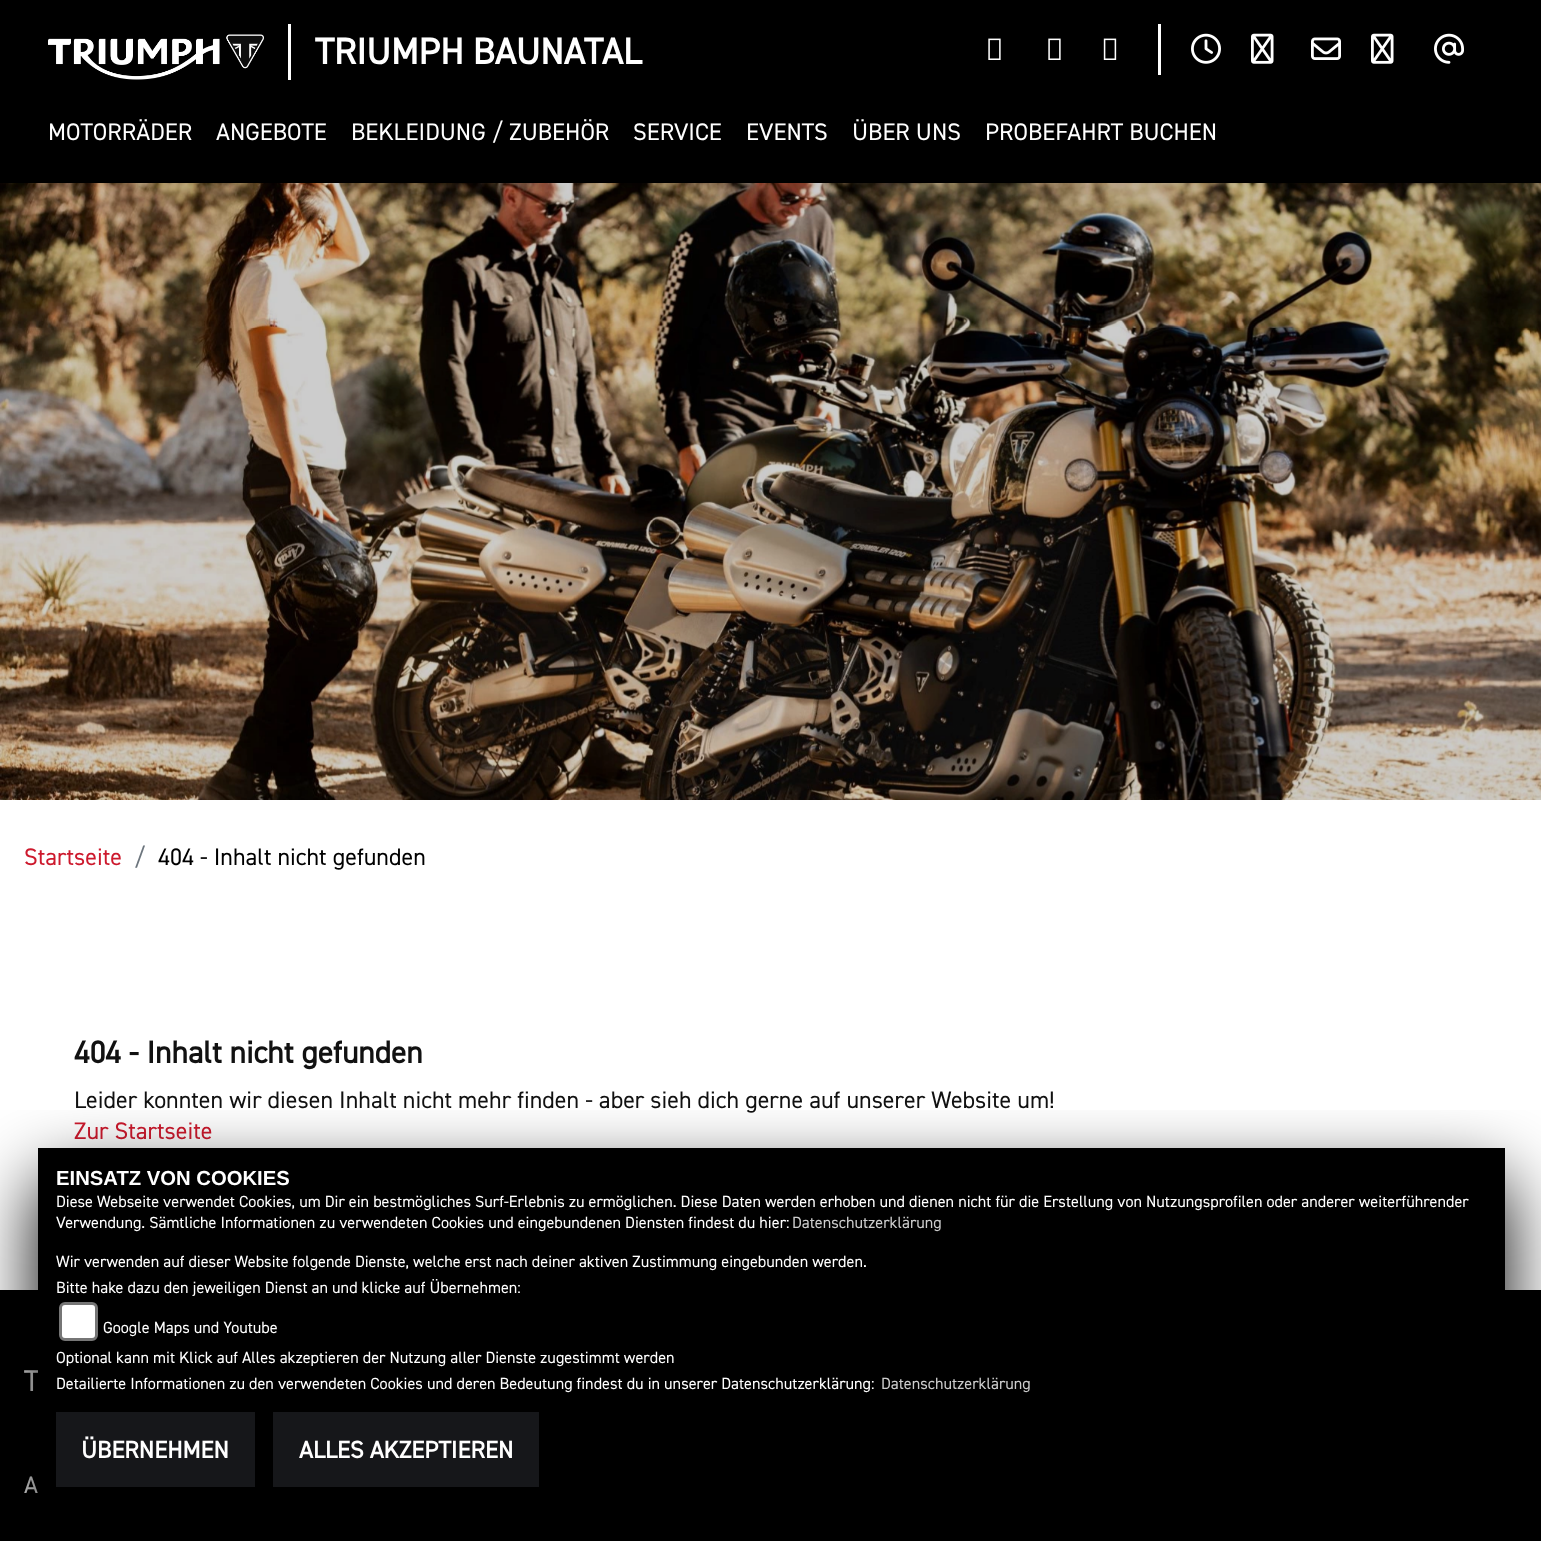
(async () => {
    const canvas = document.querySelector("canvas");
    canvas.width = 1541;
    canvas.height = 1541;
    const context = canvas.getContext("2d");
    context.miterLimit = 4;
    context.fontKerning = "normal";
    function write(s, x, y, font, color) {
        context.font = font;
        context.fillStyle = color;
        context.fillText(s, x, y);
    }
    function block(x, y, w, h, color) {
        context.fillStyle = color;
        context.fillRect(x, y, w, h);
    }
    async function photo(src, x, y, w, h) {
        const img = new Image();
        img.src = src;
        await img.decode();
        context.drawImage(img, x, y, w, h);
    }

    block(0, 0, 1541, 1541, "rgb(255, 255, 255)");
    block(0, 0, 1541, 183, "rgb(0, 0, 0)");
    await photo("media/1.png", 48, 34, 216, 46);
    block(288, 24, 3, 56, "rgb(255, 255, 255)");
    write("TRIUMPH BAUNATAL", 315, 64, "bold 36.75px 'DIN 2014'", "rgb(255, 255, 255)");
    write("MOTORRÄDER", 48, 140, "24px 'DIN 2014'", "rgb(255, 255, 255)");
    write("ANGEBOTE", 216, 140, "24px 'DIN 2014'", "rgb(255, 255, 255)");
    write("BEKLEIDUNG / ZUBEHÖR", 351, 140, "24px 'DIN 2014'", "rgb(255, 255, 255)");
    write("SERVICE", 633, 140, "24px 'DIN 2014'", "rgb(255, 255, 255)");
    write("EVENTS", 746, 140, "24px 'DIN 2014'", "rgb(255, 255, 255)");
    write("ÜBER UNS", 852, 140, "24px 'DIN 2014'", "rgb(255, 255, 255)");
    write("PROBEFAHRT BUCHEN", 985, 140, "24px 'DIN 2014'", "rgb(255, 255, 255)");
    await photo("media/2.png", 988, 38, 13, 22);
    await photo("media/2.png", 1048, 38, 13, 22);
    await photo("media/3.png", 1103, 38, 14, 22);
    block(1158, 24, 3, 51, "rgb(255, 255, 255)");
    await photo("media/4.png", 1191, 33, 30, 31);
    await photo("media/5.png", 1251, 33, 23, 31);
    await photo("media/6.png", 1311, 37, 30, 23);
    await photo("media/5.png", 1371, 33, 23, 31);
    await photo("media/7.png", 1434, 33, 30, 31);
    await photo("media/8.png", 0, 183, 1541, 617);
    write("Startseite", 24, 865, "24px 'DIN 2014'", "rgb(205, 25, 45)");
    write("/", 134, 865, "24px 'DIN 2014'", "rgb(108, 117, 125)");
    write("404 - Inhalt nicht gefunden", 158, 865, "24px 'DIN 2014'", "rgb(0, 0, 0)");
    write("404 - Inhalt nicht gefunden", 74, 1063, "bold 31.25px 'DIN 2014'", "rgb(17, 17, 17)");
    write("Leider konnten wir diesen Inhalt nicht mehr finden - aber sieh dich gerne auf unserer Website um!", 74, 1108, "24px 'DIN 2014'", "rgb(17, 17, 17)");
    write("Zur Startseite", 74, 1139, "24px 'DIN 2014'", "rgb(205, 25, 45)");
    block(0, 1290, 1541, 251, "rgb(0, 0, 0)");
    write("T", 24, 1391, "30px 'DIN 2014'", "rgb(255, 255, 255)");
    write("A", 24, 1493, "24px 'DIN 2014'", "rgb(255, 255, 255)");
    context.save();
    context.beginPath();
    context.rect(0, 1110, 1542, 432);
    context.clip();
    context.fillStyle = "rgb(0, 0, 0)";
    context.filter = "blur(37.5px)";
    context.beginPath();
    context.rect(38, 1181, 1467, 357);
    context.fill();
    context.filter = "none";
    context.restore();
    block(38, 1148, 1467, 225, "rgb(0, 0, 0)");
    write("EINSATZ VON COOKIES", 56, 1185, "bold 20.25px Liberation Sans", "rgb(255, 255, 255)");
    write("Diese Webseite verwendet Cookies, um Dir ein bestmögliches Surf-Erlebnis zu ermöglichen. Diese Daten werden erhoben und dienen nicht für die Erstellung von Nutzungsprofilen oder anderer weiterführender", 56, 1207, "16.2px 'DIN 2014'", "rgb(255, 255, 255)");
    write("Verwendung. Sämtliche Informationen zu verwendeten Cookies und eingebundenen Diensten findest du hier:", 56, 1228, "16.2px 'DIN 2014'", "rgb(255, 255, 255)");
    write("Datenschutzerklärung", 792, 1228, "16.2px 'DIN 2014'", "rgb(204, 204, 204)");
    write("Wir verwenden auf dieser Website folgende Dienste, welche erst nach deiner aktiven Zustimmung eingebunden werden.", 56, 1267, "16.2px 'DIN 2014'", "rgb(255, 255, 255)");
    write("Bitte hake dazu den jeweiligen Dienst an und klicke auf Übernehmen:", 56, 1293, "16.2px 'DIN 2014'", "rgb(255, 255, 255)");
    context.beginPath();
    context.roundRect(60.5, 1303.5, 36, 36, 4.5);
    context.fill();
    context.strokeStyle = "rgb(118, 118, 118)";
    context.lineWidth = 3;
    context.stroke();
    write("Google Maps und Youtube", 103, 1333, "16.2px 'DIN 2014'", "rgb(255, 255, 255)");
    write("Optional kann mit Klick auf Alles akzeptieren der Nutzung aller Dienste zugestimmt werden", 56, 1363, "16.2px 'DIN 2014'", "rgb(255, 255, 255)");
    write("Detailierte Informationen zu den verwendeten Cookies und deren Bedeutung findest du in unserer Datenschutzerklärung:", 56, 1389, "16.2px 'DIN 2014'", "rgb(255, 255, 255)");
    write("Datenschutzerklärung", 881, 1389, "16.2px 'DIN 2014'", "rgb(204, 204, 204)");
    block(56, 1412, 199, 75, "rgb(22, 23, 26)");
    write("ÜBERNEHMEN", 81, 1458, "bold 24px 'DIN 2014'", "rgb(255, 255, 255)");
    block(273, 1412, 266, 75, "rgb(22, 23, 26)");
    write("ALLES AKZEPTIEREN", 299, 1458, "bold 24px 'DIN 2014'", "rgb(255, 255, 255)");
})();
